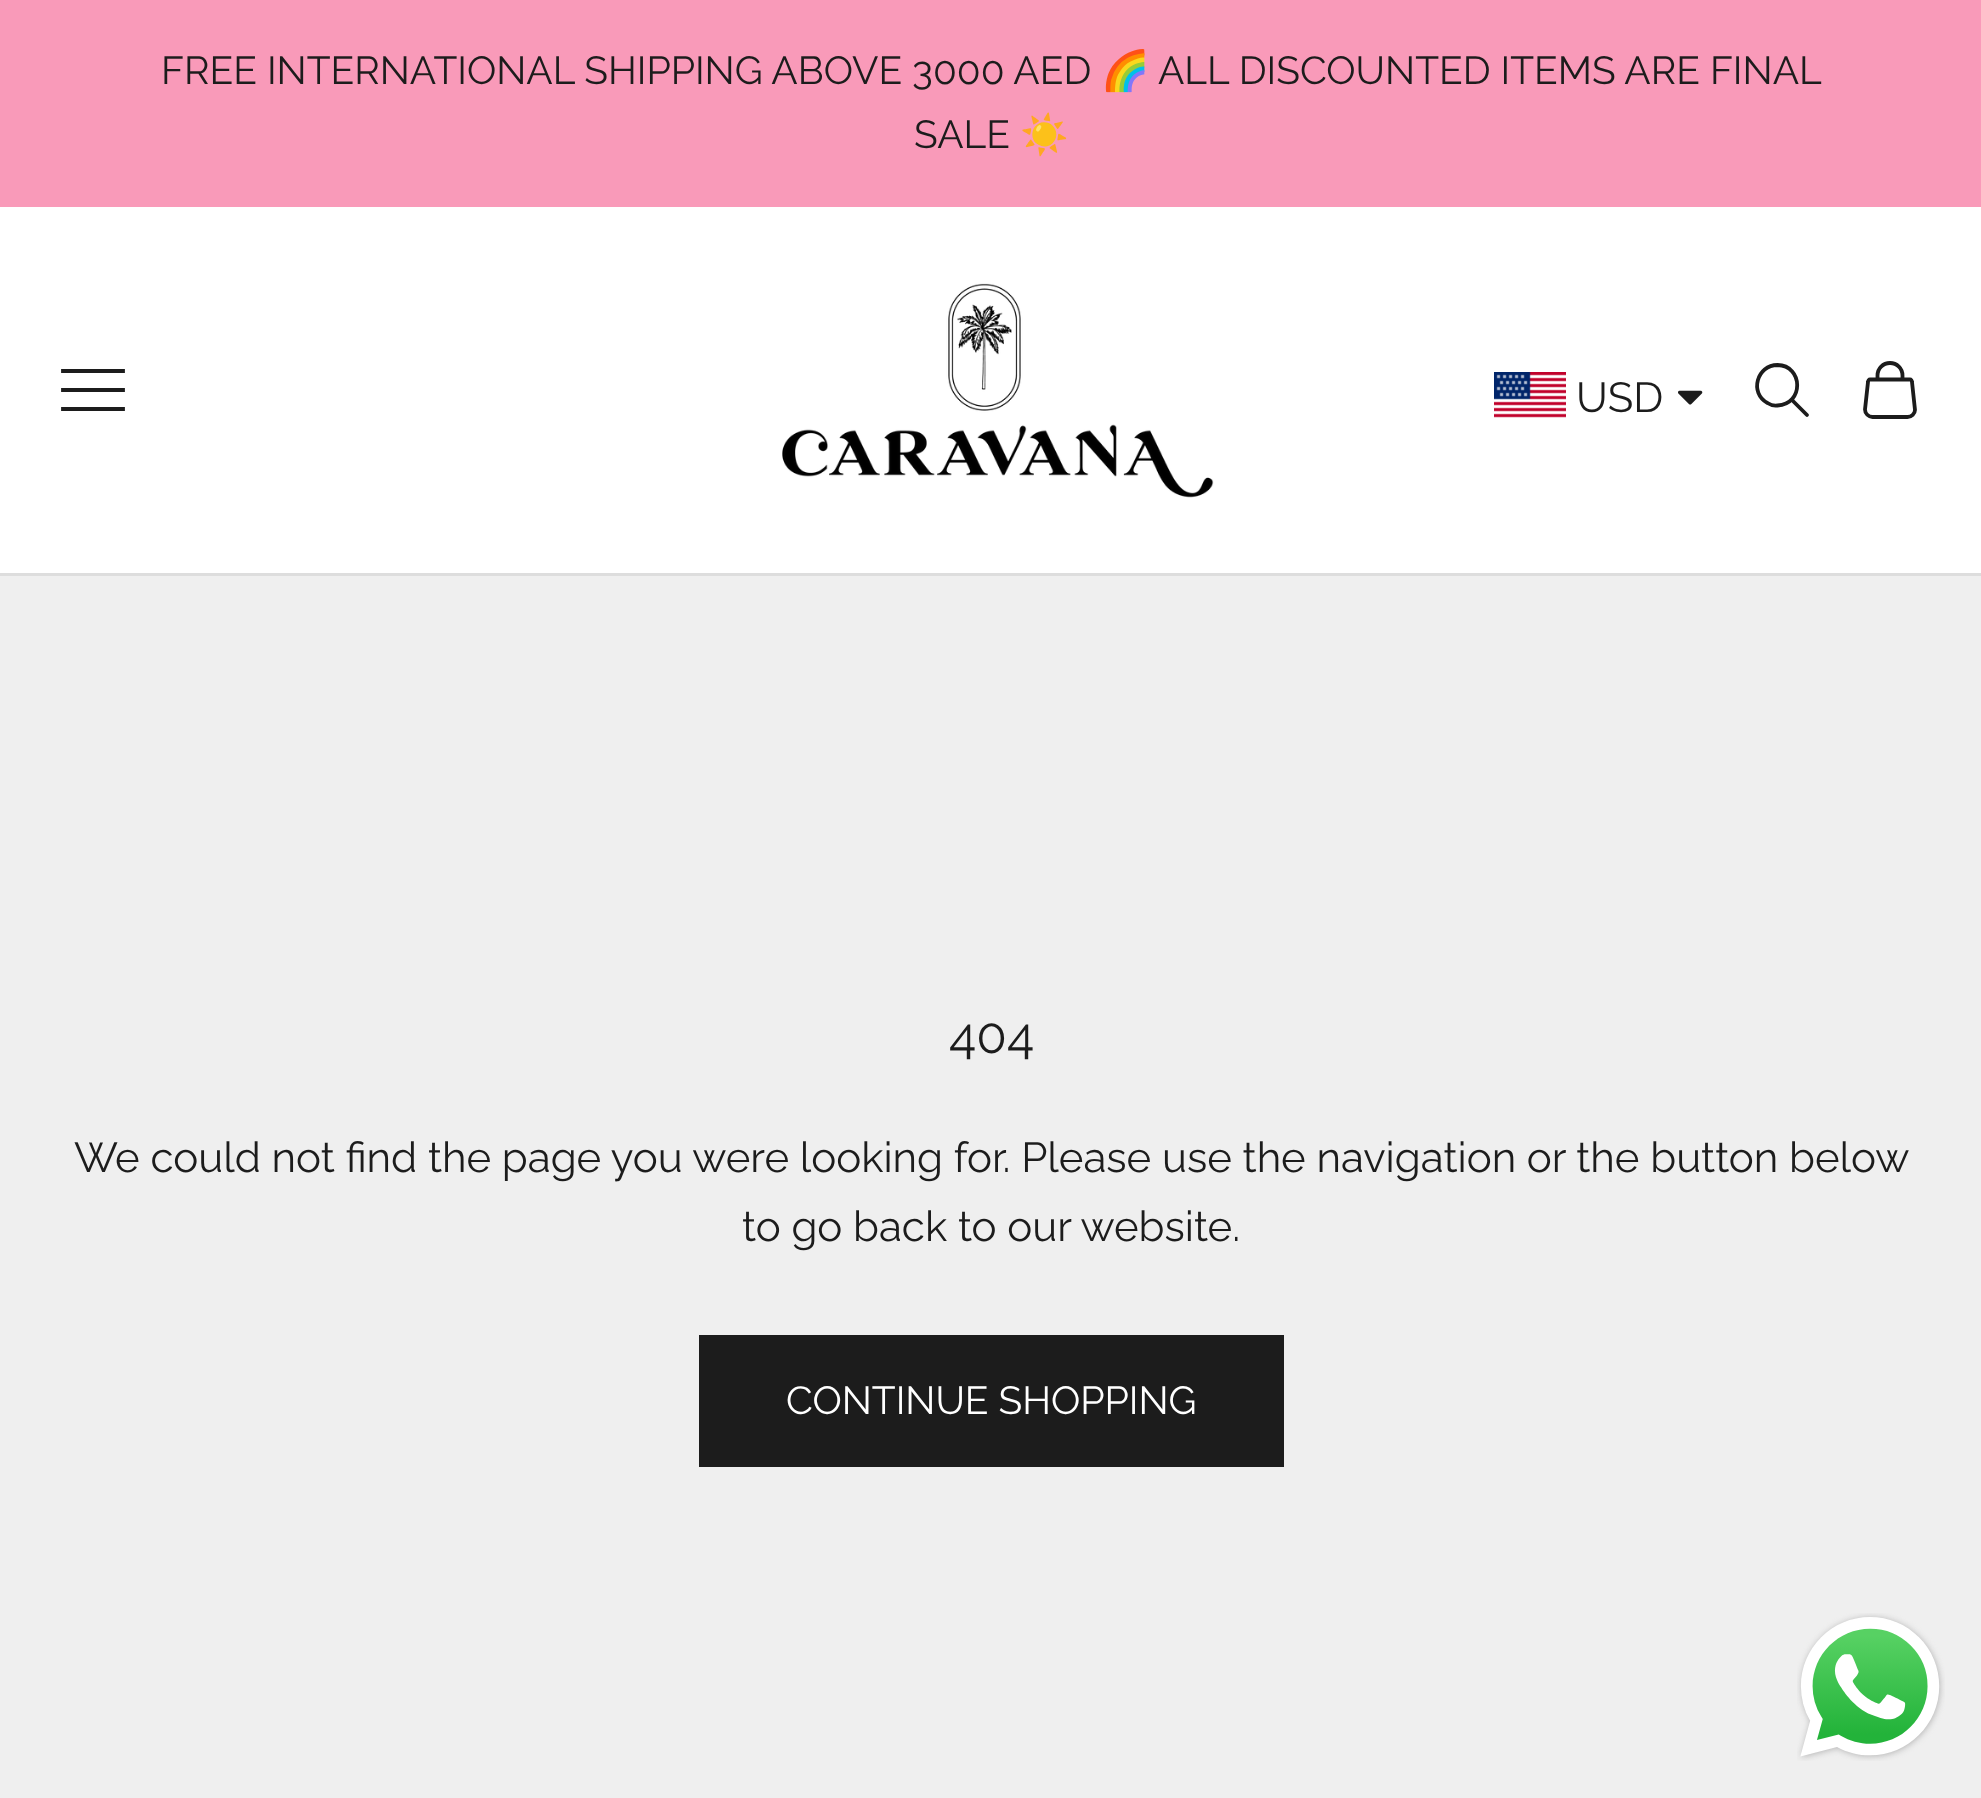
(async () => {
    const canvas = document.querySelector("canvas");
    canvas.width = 1981;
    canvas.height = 1798;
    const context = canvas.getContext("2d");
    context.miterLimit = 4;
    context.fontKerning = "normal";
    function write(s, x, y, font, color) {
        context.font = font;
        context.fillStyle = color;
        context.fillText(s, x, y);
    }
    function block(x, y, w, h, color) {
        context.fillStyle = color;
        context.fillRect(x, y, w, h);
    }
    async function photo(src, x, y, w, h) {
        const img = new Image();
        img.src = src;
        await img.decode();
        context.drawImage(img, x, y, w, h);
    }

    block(0, 0, 1981, 1798, "rgb(239, 239, 239)");
    block(0, 0, 1981, 207, "rgb(249, 154, 185)");
    write("FREE INTERNATIONAL SHIPPING ABOVE 3000 AED", 161, 84, "39px Raleway", "rgb(28, 28, 28)");
    write("🌈", 1101, 84, "39px Noto Color Emoji", "rgb(28, 28, 28)");
    write("ALL DISCOUNTED ITEMS ARE FINAL", 1158, 84, "39px Raleway", "rgb(28, 28, 28)");
    write("SALE", 914, 148, "39px Raleway", "rgb(28, 28, 28)");
    write("☀️", 1020, 148, "39px Noto Color Emoji", "rgb(28, 28, 28)");
    block(0, 207, 1981, 366, "rgb(255, 255, 255)");
    block(0, 573, 1981, 3, "rgb(221, 221, 221)");
    context.beginPath();
    context.moveTo(63, 409);
    context.lineTo(123, 409);
    context.moveTo(63, 390);
    context.lineTo(123, 390);
    context.moveTo(63, 371);
    context.lineTo(123, 371);
    context.strokeStyle = "rgb(28, 28, 28)";
    context.lineWidth = 3.8;
    context.lineCap = "square";
    context.stroke();
    await photo("media/1.png", 782, 283, 432, 215);
    await photo("media/2.png", 1494, 372, 72, 46);
    write("USD", 1576, 412, "42px Raleway", "rgb(28, 28, 28)");
    await photo("media/3.png", 1678, 390, 25, 15);
    context.beginPath();
    context.moveTo(1777.5, 365);
    context.bezierCurveTo(1757, 365, 1749, 393, 1767.5, 403);
    context.bezierCurveTo(1770.5, 405, 1774, 406, 1777.5, 405.5);
    context.bezierCurveTo(1804, 404.5, 1803.5, 365.5, 1777.5, 365);
    context.closePath();
    context.lineCap = "butt";
    context.stroke();
    context.beginPath();
    context.moveTo(1792.5, 400.5);
    context.lineTo(1807, 415);
    context.lineCap = "round";
    context.stroke();
    context.beginPath();
    context.moveTo(1870, 379.5);
    context.bezierCurveTo(1869, 379.5, 1868, 380.5, 1868, 382);
    context.lineTo(1865, 409.5);
    context.bezierCurveTo(1865, 413.5, 1868.5, 417, 1872.5, 417);
    context.lineTo(1907.5, 417);
    context.bezierCurveTo(1911.5, 417, 1915, 413.5, 1915, 410);
    context.lineTo(1912, 382);
    context.bezierCurveTo(1912, 380.5, 1911, 379.5, 1910, 379.5);
    context.closePath();
    context.moveTo(1877.5, 379.5);
    context.lineTo(1877.5, 375.5);
    context.bezierCurveTo(1877.5, 368.5, 1883, 363, 1890, 363);
    context.bezierCurveTo(1897, 363, 1902.5, 368.5, 1902.5, 375.5);
    context.lineTo(1902.5, 379.5);
    context.lineJoin = "round";
    context.stroke();
    write("404", 949, 1053, "50px Raleway", "rgb(28, 28, 28)");
    write("We could not find the page you were looking for. Please use the navigation or the button below", 74, 1172, "42px Raleway", "rgb(28, 28, 28)");
    write("to go back to our website.", 742, 1241, "42px Raleway", "rgb(28, 28, 28)");
    context.beginPath();
    context.rect(700.5, 1336.5, 582, 129);
    context.fill();
    context.lineWidth = 3;
    context.lineJoin = "miter";
    context.stroke();
    write("CONTINUE SHOPPING", 786, 1414, "39px Raleway", "rgb(255, 255, 255)");
    await photo("media/4.png", 1797, 1613, 148, 148);
})();
